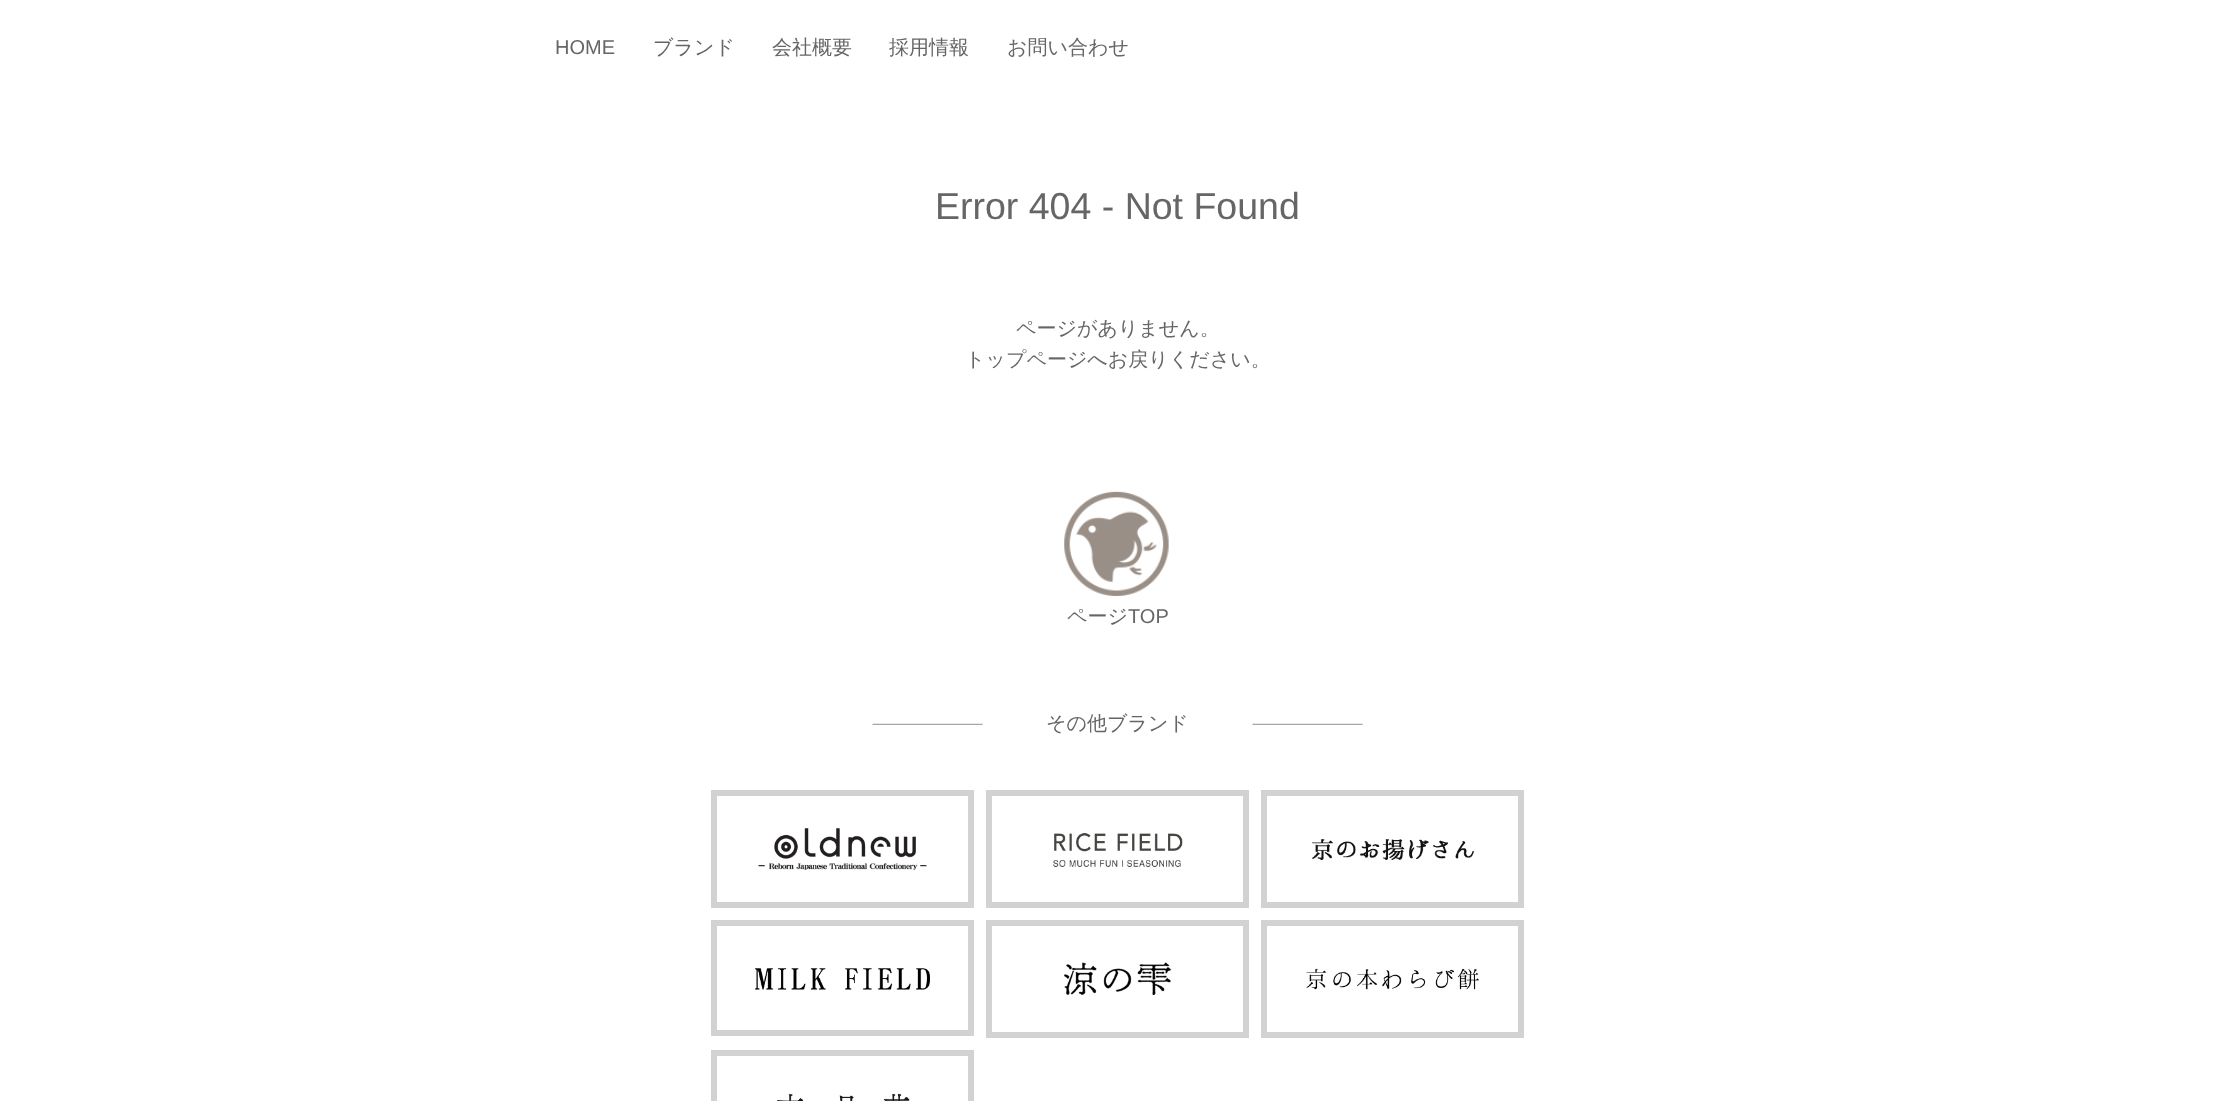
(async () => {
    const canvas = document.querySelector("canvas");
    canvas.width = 2234;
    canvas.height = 1101;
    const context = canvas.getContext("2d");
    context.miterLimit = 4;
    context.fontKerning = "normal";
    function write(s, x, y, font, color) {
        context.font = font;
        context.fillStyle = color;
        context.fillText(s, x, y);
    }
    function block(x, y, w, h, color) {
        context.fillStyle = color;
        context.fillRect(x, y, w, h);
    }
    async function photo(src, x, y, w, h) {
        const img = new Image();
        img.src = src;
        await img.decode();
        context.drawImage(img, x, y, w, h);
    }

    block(0, 0, 2234, 1101, "rgb(255, 255, 255)");
    write("HOME", 555, 54, "20px Liberation Sans", "rgb(102, 102, 102)");
    write("ブランド", 653, 54, "500 20px WenQuanYi Zen Hei", "rgb(102, 102, 102)");
    write("会社概要", 772, 54, "500 20px WenQuanYi Zen Hei", "rgb(102, 102, 102)");
    write("採用情報", 889, 54, "500 20px WenQuanYi Zen Hei", "rgb(102, 102, 102)");
    write("お問い合わせ", 1007, 54, "500 20px WenQuanYi Zen Hei", "rgb(102, 102, 102)");
    write("Error 404 - Not Found", 935, 219, "37.5px Liberation Sans", "rgb(102, 102, 102)");
    write("ページがありません。", 1016, 335, "500 20px WenQuanYi Zen Hei", "rgb(102, 102, 102)");
    write("トップページへお戻りください。", 965, 366, "500 20px WenQuanYi Zen Hei", "rgb(102, 102, 102)");
    await photo("media/1.png", 1064, 491, 105, 105);
    write("ページ", 1067, 623, "500 20px WenQuanYi Zen Hei", "rgb(102, 102, 102)");
    write("TOP", 1128, 623, "20px Liberation Sans", "rgb(102, 102, 102)");
    await photo("media/2.png", 872, 723, 491, 2);
    write("その他ブランド", 1046, 730, "500 20px WenQuanYi Zen Hei", "rgb(102, 102, 102)");
    context.strokeStyle = "rgb(210, 210, 210)";
    context.lineWidth = 6;
    context.strokeRect(714, 793, 257, 112);
    await photo("media/3.png", 758, 828, 169, 42);
    context.strokeRect(989, 793, 257, 112);
    await photo("media/4.png", 1053, 833, 130, 34);
    context.strokeRect(1264, 793, 257, 112);
    await photo("media/5.png", 1312, 839, 162, 21);
    context.strokeRect(714, 923, 257, 110);
    await photo("media/6.png", 755, 968, 175, 22);
    context.strokeRect(989, 923, 257, 112);
    await photo("media/7.png", 1063, 962, 108, 33);
    context.strokeRect(1264, 923, 257, 112);
    await photo("media/8.png", 1306, 968, 173, 22);
    context.strokeRect(714, 1053, 257, 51);
    await photo("media/9.png", 777, 1093, 133, 8);
})();
